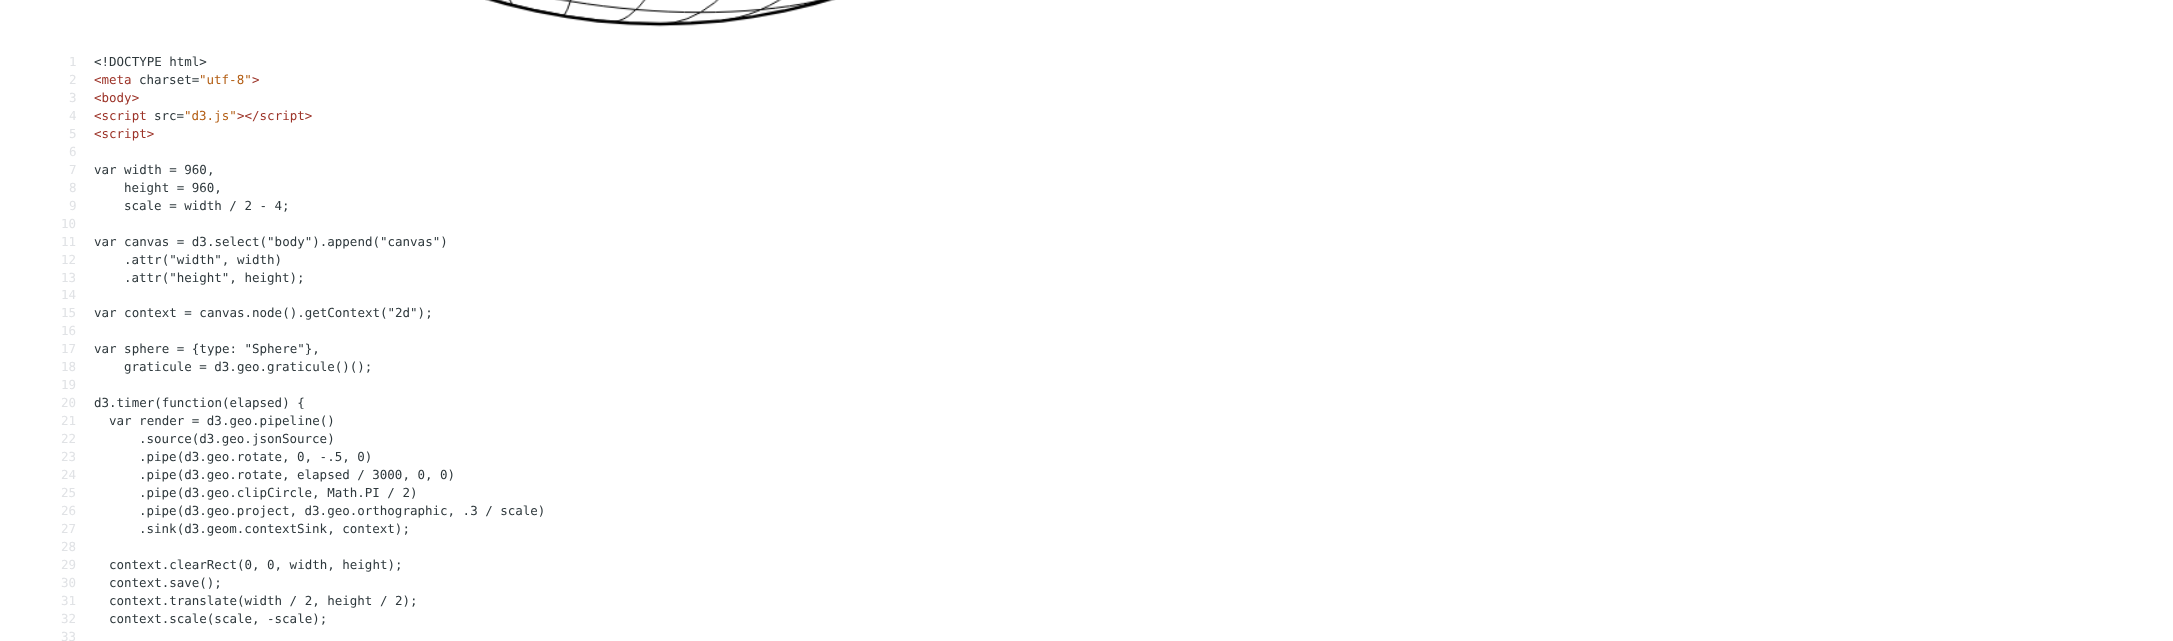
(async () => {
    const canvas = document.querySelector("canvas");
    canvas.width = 2173;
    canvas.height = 641;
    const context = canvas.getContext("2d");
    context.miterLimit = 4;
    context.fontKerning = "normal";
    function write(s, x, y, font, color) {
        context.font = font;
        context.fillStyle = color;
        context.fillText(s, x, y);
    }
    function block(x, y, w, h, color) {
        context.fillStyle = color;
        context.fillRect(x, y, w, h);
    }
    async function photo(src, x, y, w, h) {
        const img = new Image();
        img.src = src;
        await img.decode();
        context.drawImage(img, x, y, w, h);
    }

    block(0, 0, 2173, 641, "rgb(255, 255, 255)");
    await photo("media/1.png", 485, 0, 351, 27);
    write("1", 69, 66, "12.5px DejaVu Sans Mono", "rgb(224, 226, 229)");
    write("<!DOCTYPE html>", 94, 66, "12.5px DejaVu Sans Mono", "rgb(46, 56, 60)");
    write("2", 69, 84, "12.5px DejaVu Sans Mono", "rgb(224, 226, 229)");
    write("<meta", 94, 84, "12.5px DejaVu Sans Mono", "rgb(156, 51, 40)");
    write("charset=", 139, 84, "12.5px DejaVu Sans Mono", "rgb(46, 56, 60)");
    write("\"utf-8\"", 199, 84, "12.5px DejaVu Sans Mono", "rgb(179, 94, 20)");
    write(">", 252, 84, "12.5px DejaVu Sans Mono", "rgb(156, 51, 40)");
    write("3", 69, 102, "12.5px DejaVu Sans Mono", "rgb(224, 226, 229)");
    write("<body>", 94, 102, "12.5px DejaVu Sans Mono", "rgb(156, 51, 40)");
    write("4", 69, 120, "12.5px DejaVu Sans Mono", "rgb(224, 226, 229)");
    write("<script", 94, 120, "12.5px DejaVu Sans Mono", "rgb(156, 51, 40)");
    write("src=", 154, 120, "12.5px DejaVu Sans Mono", "rgb(46, 56, 60)");
    write("\"d3.js\"", 184, 120, "12.5px DejaVu Sans Mono", "rgb(179, 94, 20)");
    write("><\/script>", 237, 120, "12.5px DejaVu Sans Mono", "rgb(156, 51, 40)");
    write("5", 69, 138, "12.5px DejaVu Sans Mono", "rgb(224, 226, 229)");
    write("<script>", 94, 138, "12.5px DejaVu Sans Mono", "rgb(156, 51, 40)");
    write("6", 69, 156, "12.5px DejaVu Sans Mono", "rgb(224, 226, 229)");
    write("7", 69, 174, "12.5px DejaVu Sans Mono", "rgb(224, 226, 229)");
    write("var width = 960,", 94, 174, "12.5px DejaVu Sans Mono", "rgb(46, 56, 60)");
    write("8", 69, 192, "12.5px DejaVu Sans Mono", "rgb(224, 226, 229)");
    write("height = 960,", 124, 192, "12.5px DejaVu Sans Mono", "rgb(46, 56, 60)");
    write("9", 69, 210, "12.5px DejaVu Sans Mono", "rgb(224, 226, 229)");
    write("scale = width / 2 - 4;", 124, 210, "12.5px DejaVu Sans Mono", "rgb(46, 56, 60)");
    write("10", 61, 228, "12.5px DejaVu Sans Mono", "rgb(224, 226, 229)");
    write("11", 61, 246, "12.5px DejaVu Sans Mono", "rgb(224, 226, 229)");
    write("var canvas = d3.select(\"body\").append(\"canvas\")", 94, 246, "12.5px DejaVu Sans Mono", "rgb(46, 56, 60)");
    write("12", 61, 264, "12.5px DejaVu Sans Mono", "rgb(224, 226, 229)");
    write(".attr(\"width\", width)", 124, 264, "12.5px DejaVu Sans Mono", "rgb(46, 56, 60)");
    write("13", 61, 282, "12.5px DejaVu Sans Mono", "rgb(224, 226, 229)");
    write(".attr(\"height\", height);", 124, 282, "12.5px DejaVu Sans Mono", "rgb(46, 56, 60)");
    write("14", 61, 299, "12.5px DejaVu Sans Mono", "rgb(224, 226, 229)");
    write("15", 61, 317, "12.5px DejaVu Sans Mono", "rgb(224, 226, 229)");
    write("var context = canvas.node().getContext(\"2d\");", 94, 317, "12.5px DejaVu Sans Mono", "rgb(46, 56, 60)");
    write("16", 61, 335, "12.5px DejaVu Sans Mono", "rgb(224, 226, 229)");
    write("17", 61, 353, "12.5px DejaVu Sans Mono", "rgb(224, 226, 229)");
    write("var sphere = {type: \"Sphere\"},", 94, 353, "12.5px DejaVu Sans Mono", "rgb(46, 56, 60)");
    write("18", 61, 371, "12.5px DejaVu Sans Mono", "rgb(224, 226, 229)");
    write("graticule = d3.geo.graticule()();", 124, 371, "12.5px DejaVu Sans Mono", "rgb(46, 56, 60)");
    write("19", 61, 389, "12.5px DejaVu Sans Mono", "rgb(224, 226, 229)");
    write("20", 61, 407, "12.5px DejaVu Sans Mono", "rgb(224, 226, 229)");
    write("d3.timer(function(elapsed) {", 94, 407, "12.5px DejaVu Sans Mono", "rgb(46, 56, 60)");
    write("21", 61, 425, "12.5px DejaVu Sans Mono", "rgb(224, 226, 229)");
    write("var render = d3.geo.pipeline()", 109, 425, "12.5px DejaVu Sans Mono", "rgb(46, 56, 60)");
    write("22", 61, 443, "12.5px DejaVu Sans Mono", "rgb(224, 226, 229)");
    write(".source(d3.geo.jsonSource)", 139, 443, "12.5px DejaVu Sans Mono", "rgb(46, 56, 60)");
    write("23", 61, 461, "12.5px DejaVu Sans Mono", "rgb(224, 226, 229)");
    write(".pipe(d3.geo.rotate, 0, -.5, 0)", 139, 461, "12.5px DejaVu Sans Mono", "rgb(46, 56, 60)");
    write("24", 61, 479, "12.5px DejaVu Sans Mono", "rgb(224, 226, 229)");
    write(".pipe(d3.geo.rotate, elapsed / 3000, 0, 0)", 139, 479, "12.5px DejaVu Sans Mono", "rgb(46, 56, 60)");
    write("25", 61, 497, "12.5px DejaVu Sans Mono", "rgb(224, 226, 229)");
    write(".pipe(d3.geo.clipCircle, Math.PI / 2)", 139, 497, "12.5px DejaVu Sans Mono", "rgb(46, 56, 60)");
    write("26", 61, 515, "12.5px DejaVu Sans Mono", "rgb(224, 226, 229)");
    write(".pipe(d3.geo.project, d3.geo.orthographic, .3 / scale)", 139, 515, "12.5px DejaVu Sans Mono", "rgb(46, 56, 60)");
    write("27", 61, 533, "12.5px DejaVu Sans Mono", "rgb(224, 226, 229)");
    write(".sink(d3.geom.contextSink, context);", 139, 533, "12.5px DejaVu Sans Mono", "rgb(46, 56, 60)");
    write("28", 61, 551, "12.5px DejaVu Sans Mono", "rgb(224, 226, 229)");
    write("29", 61, 569, "12.5px DejaVu Sans Mono", "rgb(224, 226, 229)");
    write("context.clearRect(0, 0, width, height);", 109, 569, "12.5px DejaVu Sans Mono", "rgb(46, 56, 60)");
    write("30", 61, 587, "12.5px DejaVu Sans Mono", "rgb(224, 226, 229)");
    write("context.save();", 109, 587, "12.5px DejaVu Sans Mono", "rgb(46, 56, 60)");
    write("31", 61, 605, "12.5px DejaVu Sans Mono", "rgb(224, 226, 229)");
    write("context.translate(width / 2, height / 2);", 109, 605, "12.5px DejaVu Sans Mono", "rgb(46, 56, 60)");
    write("32", 61, 623, "12.5px DejaVu Sans Mono", "rgb(224, 226, 229)");
    write("context.scale(scale, -scale);", 109, 623, "12.5px DejaVu Sans Mono", "rgb(46, 56, 60)");
    write("33", 61, 641, "12.5px DejaVu Sans Mono", "rgb(224, 226, 229)");
})();
